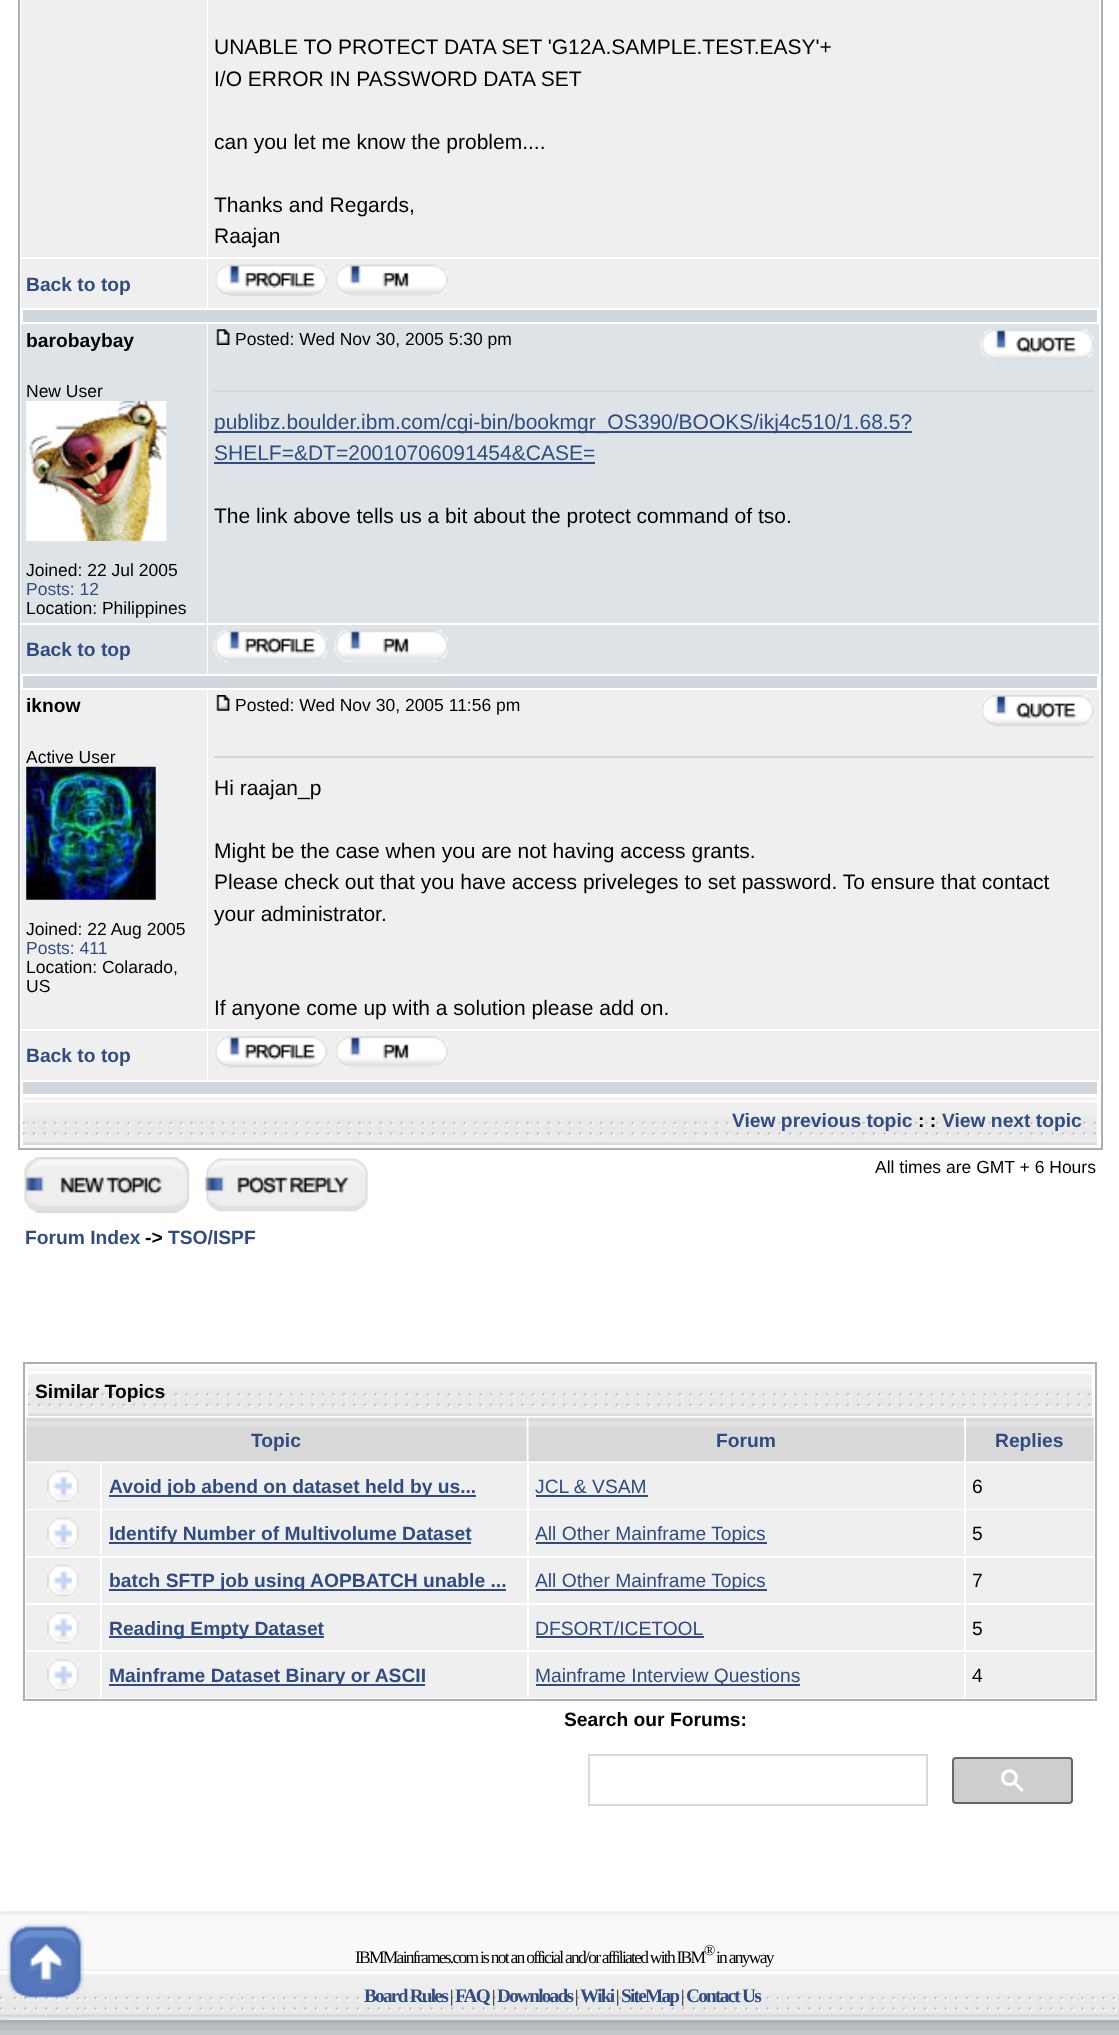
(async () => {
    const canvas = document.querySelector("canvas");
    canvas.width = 1119;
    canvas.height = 2035;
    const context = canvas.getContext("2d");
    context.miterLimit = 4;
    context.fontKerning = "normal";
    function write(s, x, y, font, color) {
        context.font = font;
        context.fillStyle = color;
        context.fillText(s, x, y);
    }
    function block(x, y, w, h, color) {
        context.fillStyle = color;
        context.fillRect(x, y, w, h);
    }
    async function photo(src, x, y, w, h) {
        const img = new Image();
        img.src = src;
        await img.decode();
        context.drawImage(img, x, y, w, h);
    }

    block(0, 0, 1119, 2035, "rgb(255, 255, 255)");
    context.strokeStyle = "rgb(171, 176, 181)";
    context.lineWidth = 2;
    context.strokeRect(19, -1, 1083, 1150);
    block(21, 0, 186, 257, "rgb(239, 239, 239)");
    block(208, 0, 891, 257, "rgb(239, 239, 239)");
    write("UNABLE TO PROTECT DATA SET 'G12A.SAMPLE.TEST.EASY'+", 214, 54, "21px Liberation Sans", "rgb(0, 0, 0)");
    write("I/O ERROR IN PASSWORD DATA SET", 214, 86, "21px Liberation Sans", "rgb(0, 0, 0)");
    write("can you let me know the problem....", 214, 149, "21px Liberation Sans", "rgb(0, 0, 0)");
    write("Thanks and Regards,", 214, 212, "21px Liberation Sans", "rgb(0, 0, 0)");
    write("Raajan", 214, 243, "21px Liberation Sans", "rgb(0, 0, 0)");
    block(21, 259, 186, 49, "rgb(239, 239, 239)");
    write("Back to top", 26, 291, "bold 19.25px Liberation Sans", "rgb(48, 76, 128)");
    block(208, 259, 891, 49, "rgb(239, 239, 239)");
    await photo("media/1.png", 213, 264, 115, 32);
    await photo("media/2.png", 334, 264, 114, 32);
    block(23, 310, 1074, 12, "rgb(209, 215, 220)");
    block(21, 324, 186, 299, "rgb(222, 227, 231)");
    write("barobaybay", 26, 347, "bold 19.25px Liberation Sans", "rgb(0, 0, 0)");
    write("New User", 26, 397, "17.5px Liberation Sans", "rgb(0, 0, 0)");
    await photo("media/3.png", 26, 401, 141, 140);
    write("Joined: 22 Jul 2005", 26, 576, "17.5px Liberation Sans", "rgb(0, 0, 0)");
    write("Posts: 12", 26, 595, "17.5px Liberation Sans", "rgb(48, 76, 128)");
    write("Location: Philippines", 26, 614, "17.5px Liberation Sans", "rgb(0, 0, 0)");
    block(208, 324, 891, 299, "rgb(222, 227, 231)");
    await photo("media/4.png", 216, 329, 14, 16);
    write("Posted: Wed Nov 30, 2005 5:30 pm", 235, 345, "17.5px Liberation Sans", "rgb(0, 0, 0)");
    await photo("media/5.png", 980, 329, 114, 32);
    block(214, 390, 880, 2, "rgb(209, 215, 220)");
    block(214, 431, 698, 2, "rgb(48, 76, 128)");
    write("publibz.boulder.ibm.com/cgi-bin/bookmgr_OS390/BOOKS/ikj4c510/1.68.5?", 214, 429, "21px Liberation Sans", "rgb(48, 76, 128)");
    write("SHELF=&DT=20010706091454&CASE=", 214, 460, "21px Liberation Sans", "rgb(48, 76, 128)");
    block(214, 462, 381, 2, "rgb(48, 76, 128)");
    write("The link above tells us a bit about the protect command of tso.", 214, 523, "21px Liberation Sans", "rgb(0, 0, 0)");
    block(21, 625, 186, 49, "rgb(222, 227, 231)");
    write("Back to top", 26, 656, "bold 19.25px Liberation Sans", "rgb(48, 76, 128)");
    block(208, 625, 891, 49, "rgb(222, 227, 231)");
    await photo("media/6.png", 213, 630, 115, 32);
    await photo("media/7.png", 334, 630, 114, 32);
    block(23, 676, 1074, 12, "rgb(209, 215, 220)");
    block(21, 690, 186, 339, "rgb(239, 239, 239)");
    write("iknow", 26, 712, "bold 19.25px Liberation Sans", "rgb(0, 0, 0)");
    write("Active User", 26, 763, "17.5px Liberation Sans", "rgb(0, 0, 0)");
    await photo("media/8.png", 26, 766, 130, 134);
    write("Joined: 22 Aug 2005", 26, 935, "17.5px Liberation Sans", "rgb(0, 0, 0)");
    write("Posts: 411", 26, 954, "17.5px Liberation Sans", "rgb(48, 76, 128)");
    write("Location: Colarado,", 26, 973, "17.5px Liberation Sans", "rgb(0, 0, 0)");
    write("US", 26, 992, "17.5px Liberation Sans", "rgb(0, 0, 0)");
    block(208, 690, 891, 339, "rgb(239, 239, 239)");
    await photo("media/9.png", 216, 695, 14, 16);
    write("Posted: Wed Nov 30, 2005 11:56 pm", 235, 711, "17.5px Liberation Sans", "rgb(0, 0, 0)");
    await photo("media/10.png", 980, 695, 114, 32);
    block(214, 756, 880, 2, "rgb(209, 215, 220)");
    write("Hi raajan_p", 214, 795, "21px Liberation Sans", "rgb(0, 0, 0)");
    write("Might be the case when you are not having access grants.", 214, 858, "21px Liberation Sans", "rgb(0, 0, 0)");
    write("Please check out that you have access priveleges to set password. To ensure that contact", 214, 889, "21px Liberation Sans", "rgb(0, 0, 0)");
    write("your administrator.", 214, 921, "21px Liberation Sans", "rgb(0, 0, 0)");
    write("If anyone come up with a solution please add on.", 214, 1015, "21px Liberation Sans", "rgb(0, 0, 0)");
    block(21, 1031, 186, 49, "rgb(239, 239, 239)");
    write("Back to top", 26, 1062, "bold 19.25px Liberation Sans", "rgb(48, 76, 128)");
    block(208, 1031, 891, 49, "rgb(239, 239, 239)");
    await photo("media/11.png", 213, 1036, 115, 32);
    await photo("media/12.png", 334, 1036, 114, 32);
    block(23, 1082, 1074, 12, "rgb(209, 215, 220)");
    await photo("media/13.png", 23, 1096, 1074, 49);
    write("View previous topic", 732, 1127, "bold 19.25px Liberation Sans", "rgb(48, 76, 128)");
    write(": :", 918, 1127, "bold 19.25px Liberation Sans", "rgb(0, 0, 0)");
    write("View next topic", 942, 1127, "bold 19.25px Liberation Sans", "rgb(48, 76, 128)");
    await photo("media/14.png", 24, 1157, 165, 56);
    await photo("media/15.png", 204, 1158, 164, 54);
    write("All times are GMT + 6 Hours", 875, 1173, "17.5px Liberation Sans", "rgb(0, 0, 0)");
    write("Forum Index", 25, 1244, "bold 19.25px Liberation Sans", "rgb(48, 76, 128)");
    write("->", 145, 1244, "bold 19.25px Liberation Sans", "rgb(0, 0, 0)");
    write("TSO/ISPF", 168, 1244, "bold 19.25px Liberation Sans", "rgb(48, 76, 128)");
    context.strokeRect(24, 1363, 1072, 337);
    await photo("media/16.png", 28, 1367, 1064, 49);
    write("Similar Topics", 35, 1398, "bold 19.25px Liberation Sans", "rgb(0, 0, 0)");
    await photo("media/17.png", 26, 1417, 501, 45);
    write("Topic", 251, 1447, "bold 19.25px Liberation Sans", "rgb(48, 76, 128)");
    await photo("media/18.png", 528, 1417, 437, 45);
    write("Forum", 716, 1447, "bold 19.25px Liberation Sans", "rgb(48, 76, 128)");
    await photo("media/19.png", 966, 1417, 128, 45);
    write("Replies", 995, 1447, "bold 19.25px Liberation Sans", "rgb(48, 76, 128)");
    block(26, 1463, 74, 46, "rgb(239, 239, 239)");
    await photo("media/20.png", 47, 1470, 32, 32);
    block(102, 1463, 425, 46, "rgb(239, 239, 239)");
    block(109, 1495, 367, 2, "rgb(48, 76, 128)");
    write("Avoid job abend on dataset held by us...", 109, 1493, "bold 19.25px Liberation Sans", "rgb(48, 76, 128)");
    block(529, 1463, 435, 46, "rgb(239, 239, 239)");
    write("JCL & VSAM", 535, 1493, "19.25px Liberation Sans", "rgb(48, 76, 128)");
    block(536, 1495, 112, 2, "rgb(48, 76, 128)");
    block(966, 1463, 128, 46, "rgb(239, 239, 239)");
    write("6", 972, 1493, "19.25px Liberation Sans", "rgb(0, 0, 0)");
    block(26, 1510, 74, 46, "rgb(239, 239, 239)");
    await photo("media/21.png", 47, 1517, 32, 32);
    block(102, 1510, 425, 46, "rgb(239, 239, 239)");
    block(109, 1542, 362, 2, "rgb(48, 76, 128)");
    write("Identify Number of Multivolume Dataset", 109, 1540, "bold 19.25px Liberation Sans", "rgb(48, 76, 128)");
    block(529, 1510, 435, 46, "rgb(239, 239, 239)");
    block(536, 1542, 231, 2, "rgb(48, 76, 128)");
    write("All Other Mainframe Topics", 535, 1540, "19.25px Liberation Sans", "rgb(48, 76, 128)");
    block(966, 1510, 128, 46, "rgb(239, 239, 239)");
    write("5", 972, 1540, "19.25px Liberation Sans", "rgb(0, 0, 0)");
    block(26, 1558, 74, 45, "rgb(239, 239, 239)");
    await photo("media/22.png", 47, 1564, 32, 33);
    block(102, 1558, 425, 45, "rgb(239, 239, 239)");
    block(109, 1589, 397, 2, "rgb(48, 76, 128)");
    write("batch SFTP job using AOPBATCH unable ...", 109, 1587, "bold 19.25px Liberation Sans", "rgb(48, 76, 128)");
    block(529, 1558, 435, 45, "rgb(239, 239, 239)");
    block(536, 1589, 231, 2, "rgb(48, 76, 128)");
    write("All Other Mainframe Topics", 535, 1587, "19.25px Liberation Sans", "rgb(48, 76, 128)");
    block(966, 1558, 128, 45, "rgb(239, 239, 239)");
    write("7", 972, 1587, "19.25px Liberation Sans", "rgb(0, 0, 0)");
    block(26, 1605, 74, 45, "rgb(239, 239, 239)");
    await photo("media/23.png", 47, 1612, 32, 32);
    block(102, 1605, 425, 45, "rgb(239, 239, 239)");
    block(109, 1636, 215, 2, "rgb(48, 76, 128)");
    write("Reading Empty Dataset", 109, 1635, "bold 19.25px Liberation Sans", "rgb(48, 76, 128)");
    block(529, 1605, 435, 45, "rgb(239, 239, 239)");
    write("DFSORT/ICETOOL", 535, 1635, "19.25px Liberation Sans", "rgb(48, 76, 128)");
    block(536, 1636, 168, 2, "rgb(48, 76, 128)");
    block(966, 1605, 128, 45, "rgb(239, 239, 239)");
    write("5", 972, 1635, "19.25px Liberation Sans", "rgb(0, 0, 0)");
    block(26, 1652, 74, 46, "rgb(239, 239, 239)");
    await photo("media/24.png", 47, 1659, 32, 32);
    block(102, 1652, 425, 46, "rgb(239, 239, 239)");
    block(109, 1684, 316, 2, "rgb(48, 76, 128)");
    write("Mainframe Dataset Binary or ASCII", 109, 1682, "bold 19.25px Liberation Sans", "rgb(48, 76, 128)");
    block(529, 1652, 435, 46, "rgb(239, 239, 239)");
    block(536, 1684, 264, 2, "rgb(48, 76, 128)");
    write("Mainframe Interview Questions", 535, 1682, "19.25px Liberation Sans", "rgb(48, 76, 128)");
    block(966, 1652, 128, 46, "rgb(239, 239, 239)");
    write("4", 972, 1682, "19.25px Liberation Sans", "rgb(0, 0, 0)");
    write("Search our Forums:", 564, 1726, "bold 19.25px Liberation Sans", "rgb(0, 0, 0)");
    context.strokeStyle = "rgb(217, 217, 217)";
    context.strokeRect(589, 1755, 338, 50);
    context.fillStyle = "rgb(206, 206, 206)";
    context.beginPath();
    context.roundRect(953, 1758, 119, 45, 3);
    context.fill();
    context.strokeStyle = "rgb(102, 102, 102)";
    context.stroke();
    await photo("media/25.png", 1001, 1769, 23, 23);
    await photo("media/26.png", 0, 1911, 1119, 109);
    await photo("media/28.png", 0, 2019, 1119, 16);
    await photo("media/27.png", 7, 1911, 77, 109);
    context.letterSpacing = "-1.75px";
    write("IBMMainframes.com is not an official and/or affiliated with IBM", 355, 1963, "17.5px Liberation Serif", "rgb(0, 0, 0)");
    write("®", 704, 1955, "15px Liberation Serif", "rgb(0, 0, 0)");
    write("in anyway", 716, 1963, "17.5px Liberation Serif", "rgb(0, 0, 0)");
    write("Board Rules", 364, 2002, "bold 19.25px Liberation Serif", "rgb(48, 76, 128)");
    write("|", 450, 2002, "17.5px Liberation Serif", "rgb(0, 0, 0)");
    write("FAQ", 455, 2002, "bold 19.25px Liberation Serif", "rgb(48, 76, 128)");
    write("|", 492, 2002, "17.5px Liberation Serif", "rgb(0, 0, 0)");
    write("Downloads", 497, 2002, "bold 19.25px Liberation Serif", "rgb(48, 76, 128)");
    write("|", 575, 2002, "17.5px Liberation Serif", "rgb(0, 0, 0)");
    write("Wiki", 580, 2002, "bold 19.25px Liberation Serif", "rgb(48, 76, 128)");
    write("|", 616, 2002, "17.5px Liberation Serif", "rgb(0, 0, 0)");
    write("SiteMap", 621, 2002, "bold 19.25px Liberation Serif", "rgb(48, 76, 128)");
    write("|", 681, 2002, "17.5px Liberation Serif", "rgb(0, 0, 0)");
    write("Contact Us", 686, 2002, "bold 19.25px Liberation Serif", "rgb(48, 76, 128)");
})();
